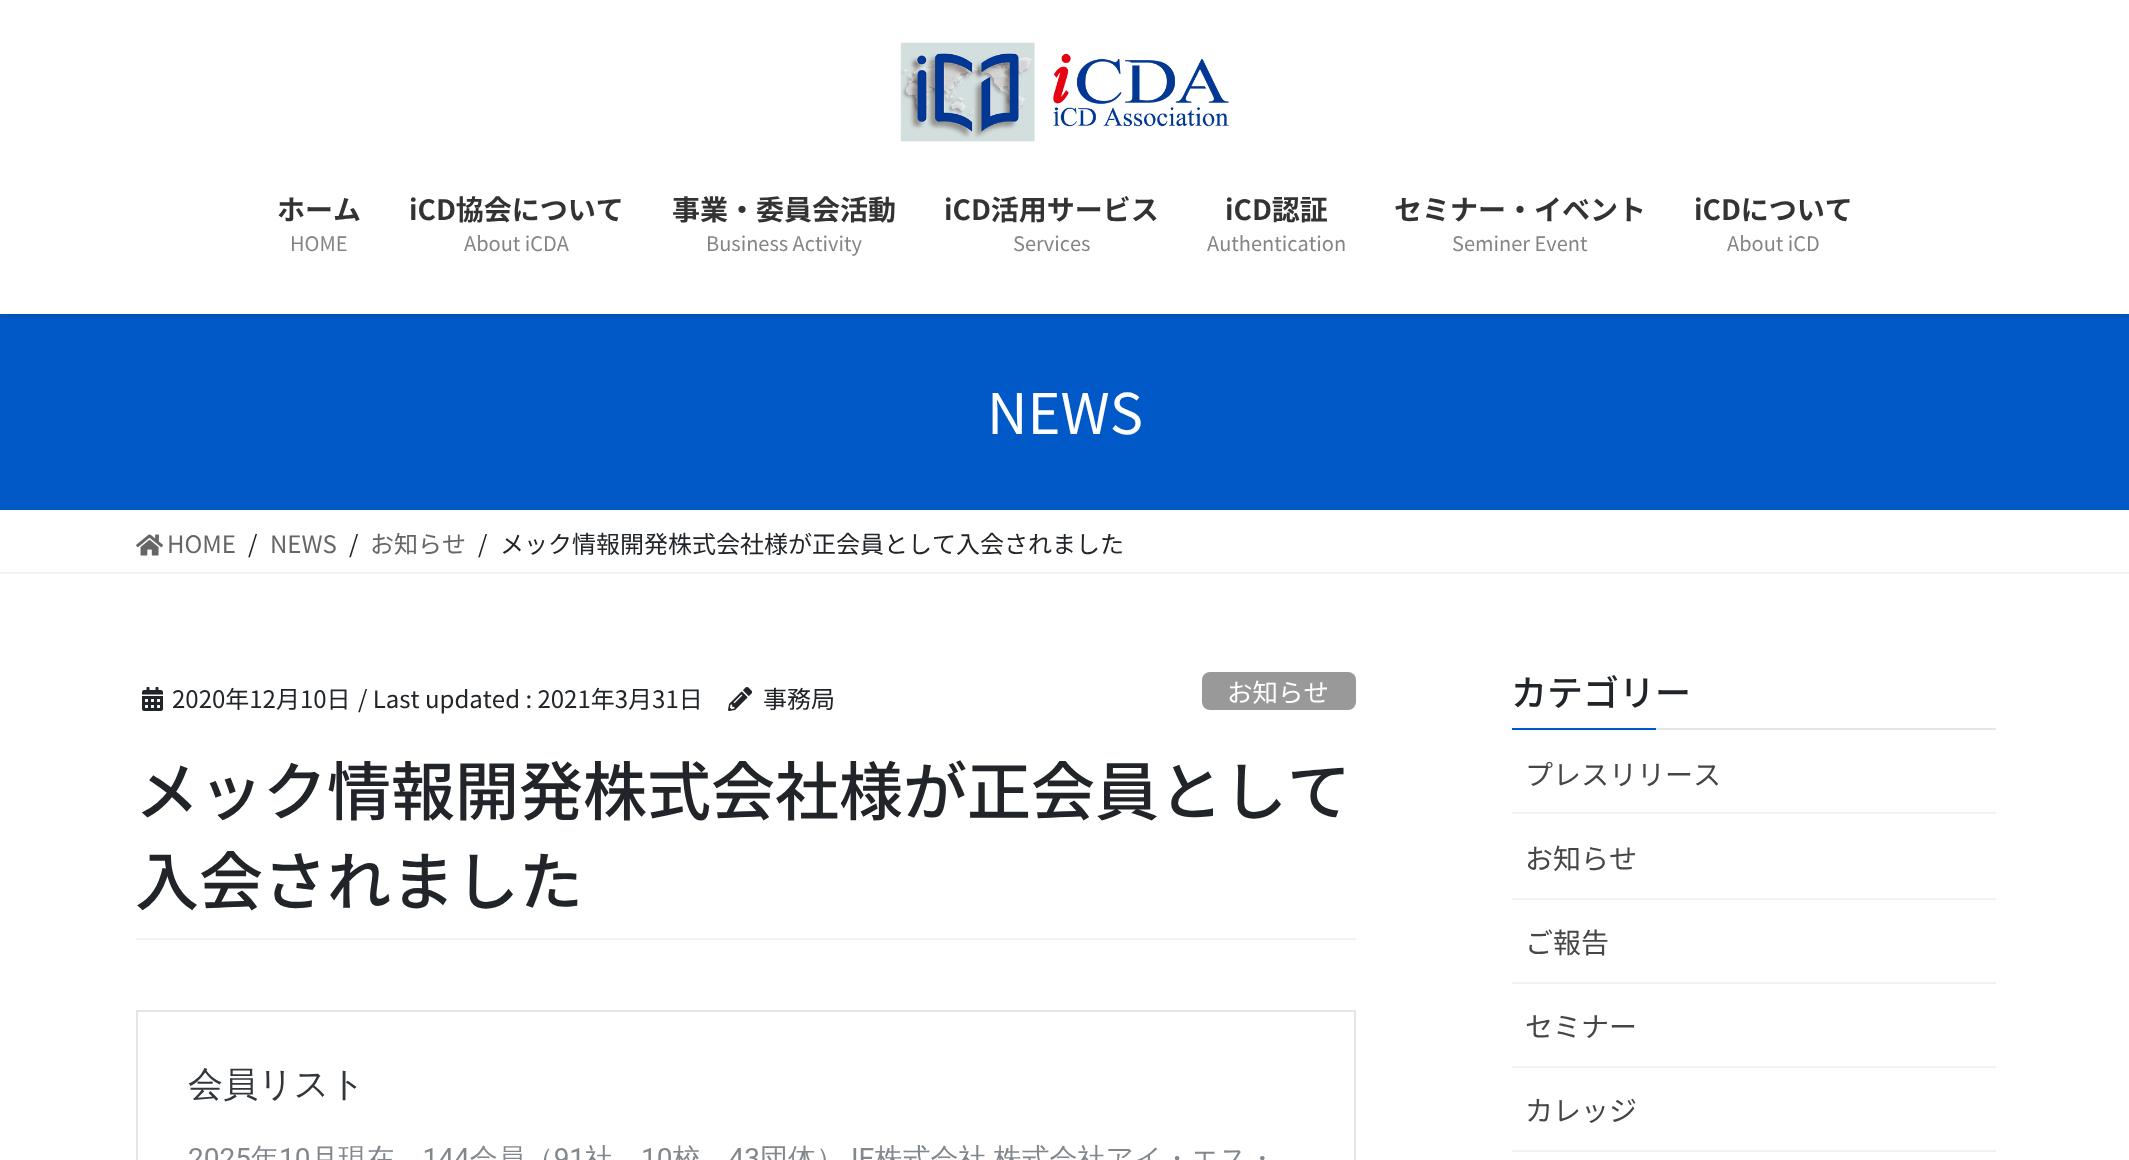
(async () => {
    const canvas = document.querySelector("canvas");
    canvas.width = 2129;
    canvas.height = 1160;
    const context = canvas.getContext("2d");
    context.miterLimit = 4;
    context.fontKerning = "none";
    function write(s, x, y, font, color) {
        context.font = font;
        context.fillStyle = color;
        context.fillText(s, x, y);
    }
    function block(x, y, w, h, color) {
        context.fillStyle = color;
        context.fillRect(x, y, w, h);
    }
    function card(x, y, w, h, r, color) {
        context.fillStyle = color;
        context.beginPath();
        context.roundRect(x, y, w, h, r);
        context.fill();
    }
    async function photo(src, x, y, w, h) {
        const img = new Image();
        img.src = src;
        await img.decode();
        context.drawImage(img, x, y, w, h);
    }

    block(0, 0, 2129, 1160, "rgb(255, 255, 255)");
    block(0, 314, 2129, 196, "rgb(0, 89, 198)");
    context.save();
    context.beginPath();
    context.rect(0, 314, 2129, 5);
    context.clip();
    context.fillStyle = "rgba(0, 0, 0, 0.1)";
    context.filter = "blur(3px)";
    context.beginPath();
    context.rect(0, 2, 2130, 314);
    context.fill();
    context.filter = "none";
    context.restore();
    await photo("media/1.png", 900, 42, 329, 100);
    write("ホーム", 277, 220, "bold 28px Noto Sans JP", "rgb(51, 51, 51)");
    write("HOME", 290, 251, "20px Noto Sans JP", "rgb(133, 133, 133)");
    write("iCD協会について", 409, 220, "bold 28px Noto Sans JP", "rgb(51, 51, 51)");
    write("About iCDA", 464, 251, "20px Noto Sans JP", "rgb(133, 133, 133)");
    write("事業・委員会活動", 672, 220, "bold 28px Noto Sans JP", "rgb(51, 51, 51)");
    write("Business Activity", 706, 251, "20px Noto Sans JP", "rgb(133, 133, 133)");
    write("iCD活用サービス", 944, 220, "bold 28px Noto Sans JP", "rgb(51, 51, 51)");
    write("Services", 1013, 251, "20px Noto Sans JP", "rgb(133, 133, 133)");
    write("iCD認証", 1225, 220, "bold 28px Noto Sans JP", "rgb(51, 51, 51)");
    write("Authentication", 1207, 251, "20px Noto Sans JP", "rgb(133, 133, 133)");
    write("セミナー・イベント", 1394, 220, "bold 28px Noto Sans JP", "rgb(51, 51, 51)");
    write("Seminer Event", 1452, 251, "20px Noto Sans JP", "rgb(133, 133, 133)");
    write("iCDについて", 1694, 220, "bold 28px Noto Sans JP", "rgb(51, 51, 51)");
    write("About iCD", 1727, 251, "20px Noto Sans JP", "rgb(133, 133, 133)");
    write("NEWS", 987, 434, "56px Noto Sans JP", "rgb(255, 255, 255)");
    block(0, 572, 2129, 2, "rgb(242, 242, 242)");
    await photo("media/2.png", 136, 534, 27, 22);
    write("HOME", 167, 553, "24px Noto Sans JP", "rgb(102, 102, 102)");
    write("/", 248, 553, "24px Noto Sans JP", "rgb(33, 37, 41)");
    write("NEWS", 270, 553, "24px Noto Sans JP", "rgb(102, 102, 102)");
    write("/", 349, 553, "24px Noto Sans JP", "rgb(33, 37, 41)");
    write("お知らせ", 370, 553, "24px Noto Sans JP", "rgb(102, 102, 102)");
    write("/", 478, 553, "24px Noto Sans JP", "rgb(33, 37, 41)");
    write("メック情報開発株式会社様が正会員として入会されました", 500, 553, "24px Noto Sans JP", "rgb(33, 37, 41)");
    block(136, 938, 1220, 2, "rgb(242, 242, 242)");
    await photo("media/3.png", 142, 687, 21, 24);
    write("2020年12月10日", 172, 708, "24px Noto Sans JP", "rgb(33, 37, 41)");
    write("/ Last updated : 2021年3月31日", 358, 708, "24px Noto Sans JP", "rgb(33, 37, 41)");
    await photo("media/4.png", 728, 687, 24, 24);
    write("事務局", 763, 708, "24px Noto Sans JP", "rgb(33, 37, 41)");
    card(1202, 672, 154, 38, 8, "rgb(153, 153, 153)");
    write("お知らせ", 1227, 702, "25.5px Noto Sans JP", "rgb(255, 255, 255)");
    write("メック情報開発株式会社様が正会員として", 135, 815, "500 64px Noto Sans JP", "rgb(33, 37, 41)");
    write("入会されました", 135, 905, "500 64px Noto Sans JP", "rgb(33, 37, 41)");
    await photo("media/5.png", 136, 1010, 1220, 150);
    block(1656, 728, 340, 2, "rgb(230, 230, 230)");
    write("カテゴリー", 1511, 706, "500 36px Noto Sans JP", "rgb(33, 37, 41)");
    block(1512, 728, 144, 2, "rgb(0, 89, 198)");
    block(1512, 812, 484, 2, "rgb(242, 242, 242)");
    write("プレスリリース", 1525, 785, "28px Noto Sans JP", "rgb(70, 70, 70)");
    block(1512, 898, 484, 2, "rgb(242, 242, 242)");
    write("お知らせ", 1525, 869, "28px Noto Sans JP", "rgb(70, 70, 70)");
    block(1512, 982, 484, 2, "rgb(242, 242, 242)");
    write("ご報告", 1525, 953, "28px Noto Sans JP", "rgb(70, 70, 70)");
    block(1512, 1066, 484, 2, "rgb(242, 242, 242)");
    write("セミナー", 1525, 1037, "28px Noto Sans JP", "rgb(70, 70, 70)");
    block(1512, 1150, 484, 2, "rgb(242, 242, 242)");
    write("カレッジ", 1525, 1121, "28px Noto Sans JP", "rgb(70, 70, 70)");
})();
